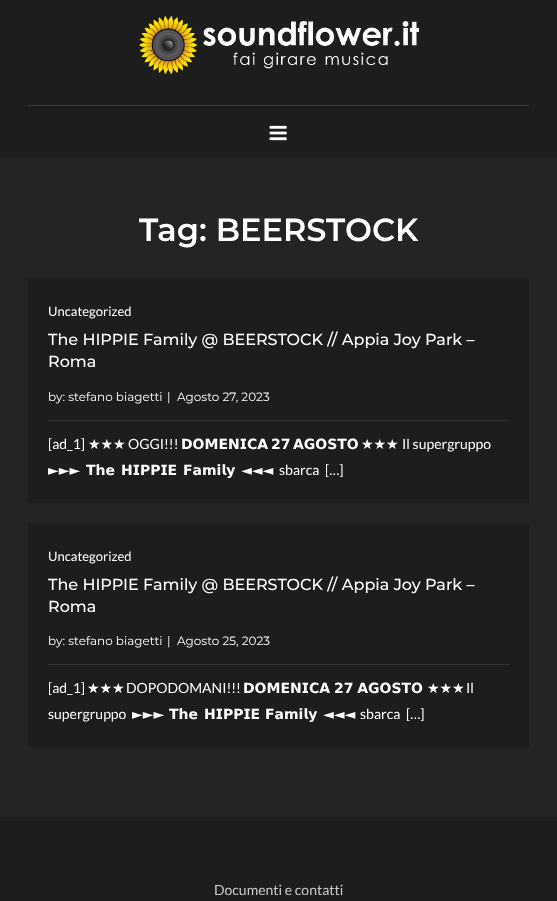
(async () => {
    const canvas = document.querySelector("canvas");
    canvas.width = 557;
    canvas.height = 901;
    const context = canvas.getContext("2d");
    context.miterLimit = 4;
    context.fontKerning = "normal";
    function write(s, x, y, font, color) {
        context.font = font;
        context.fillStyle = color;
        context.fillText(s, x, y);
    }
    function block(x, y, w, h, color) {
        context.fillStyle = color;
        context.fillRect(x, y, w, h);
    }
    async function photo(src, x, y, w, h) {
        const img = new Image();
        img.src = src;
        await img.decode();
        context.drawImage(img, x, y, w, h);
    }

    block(0, 0, 557, 901, "rgb(36, 36, 36)");
    block(0, 0, 557, 158, "rgb(29, 29, 29)");
    block(28, 105, 501, 1, "rgb(63, 63, 63)");
    await photo("media/1.png", 138, 15, 281, 60);
    await photo("media/2.png", 269, 125, 18, 16);
    write("Tag: BEERSTOCK", 139, 241, "600 32px Montserrat", "rgb(255, 255, 255)");
    block(28, 278, 501, 225, "rgb(29, 29, 29)");
    write("Uncategorized", 48, 316, "13px Lato", "rgb(255, 255, 255)");
    write("The HIPPIE Family @ BEERSTOCK // Appia Joy Park –", 48, 345, "500 16px Montserrat", "rgb(255, 255, 255)");
    write("Roma", 48, 367, "500 16px Montserrat", "rgb(255, 255, 255)");
    write("by: stefano biagetti", 48, 401, "12px Montserrat", "rgb(255, 255, 255)");
    write("|", 167, 401, "12px Montserrat", "rgb(255, 255, 255)");
    write("Agosto 27, 2023", 177, 401, "12px Montserrat", "rgb(255, 255, 255)");
    block(48, 420, 461, 1, "rgb(52, 52, 52)");
    write("[ad_1]", 48, 449, "14px Lato", "rgb(255, 255, 255)");
    write("★★★", 88, 449, "bold 14px DejaVu Sans", "rgb(255, 255, 255)");
    write("OGGI!!!", 128, 449, "14px Lato", "rgb(255, 255, 255)");
    write("𝗗𝗢𝗠𝗘𝗡𝗜𝗖𝗔", 181, 449, "bold 14px DejaVu Sans", "rgb(255, 255, 255)");
    write("𝟮𝟳", 271, 449, "bold 14px DejaVu Sans", "rgb(255, 255, 255)");
    write("𝗔𝗚𝗢𝗦𝗧𝗢", 293, 449, "bold 14px DejaVu Sans", "rgb(255, 255, 255)");
    write("★★★", 361, 449, "bold 14px DejaVu Sans", "rgb(255, 255, 255)");
    write("Il supergruppo", 402, 449, "14px Lato", "rgb(255, 255, 255)");
    write("►►►", 48, 475, "bold 14px DejaVu Sans", "rgb(255, 255, 255)");
    write("𝗧𝗵𝗲", 86, 475, "bold 14px DejaVu Sans", "rgb(255, 255, 255)");
    write("𝗛𝗜𝗣𝗣𝗜𝗘", 121, 475, "bold 14px DejaVu Sans", "rgb(255, 255, 255)");
    write("𝗙𝗮𝗺𝗶𝗹𝘆", 183, 475, "bold 14px DejaVu Sans", "rgb(255, 255, 255)");
    write("◄◄◄", 241, 475, "bold 14px DejaVu Sans", "rgb(255, 255, 255)");
    context.wordSpacing = "3px";
    write("sbarca […]", 279, 475, "14px Lato", "rgb(255, 255, 255)");
    block(28, 523, 501, 224, "rgb(29, 29, 29)");
    context.wordSpacing = "0px";
    write("Uncategorized", 48, 561, "13px Lato", "rgb(255, 255, 255)");
    write("The HIPPIE Family @ BEERSTOCK // Appia Joy Park –", 48, 590, "500 16px Montserrat", "rgb(255, 255, 255)");
    write("Roma", 48, 612, "500 16px Montserrat", "rgb(255, 255, 255)");
    write("by: stefano biagetti", 48, 645, "12px Montserrat", "rgb(255, 255, 255)");
    write("|", 167, 645, "12px Montserrat", "rgb(255, 255, 255)");
    write("Agosto 25, 2023", 177, 645, "12px Montserrat", "rgb(255, 255, 255)");
    block(48, 664, 461, 1, "rgb(52, 52, 52)");
    write("[ad_1]", 48, 693, "14px Lato", "rgb(255, 255, 255)");
    write("★★★", 87, 693, "bold 14px DejaVu Sans", "rgb(255, 255, 255)");
    write("DOPODOMANI!!!", 126, 693, "14px Lato", "rgb(255, 255, 255)");
    context.wordSpacing = "-1px";
    write("𝗗𝗢𝗠𝗘𝗡𝗜𝗖𝗔 𝟮𝟳 𝗔𝗚𝗢𝗦𝗧𝗢 ★★★", 243, 693, "bold 14px DejaVu Sans", "rgb(255, 255, 255)");
    context.wordSpacing = "0px";
    write("Il", 466, 693, "14px Lato", "rgb(255, 255, 255)");
    write("supergruppo", 48, 719, "14px Lato", "rgb(255, 255, 255)");
    write("►►►", 132, 719, "bold 14px DejaVu Sans", "rgb(255, 255, 255)");
    write("𝗧𝗵𝗲", 169, 719, "bold 14px DejaVu Sans", "rgb(255, 255, 255)");
    write("𝗛𝗜𝗣𝗣𝗜𝗘", 204, 719, "bold 14px DejaVu Sans", "rgb(255, 255, 255)");
    write("𝗙𝗮𝗺𝗶𝗹𝘆", 265, 719, "bold 14px DejaVu Sans", "rgb(255, 255, 255)");
    write("◄◄◄", 323, 719, "bold 14px DejaVu Sans", "rgb(255, 255, 255)");
    context.wordSpacing = "3px";
    write("sbarca […]", 360, 719, "14px Lato", "rgb(255, 255, 255)");
    block(0, 817, 557, 84, "rgb(29, 29, 29)");
    context.wordSpacing = "0px";
    write("Documenti e contatti", 214, 895, "14px Lato", "rgb(204, 204, 204)");
})();
